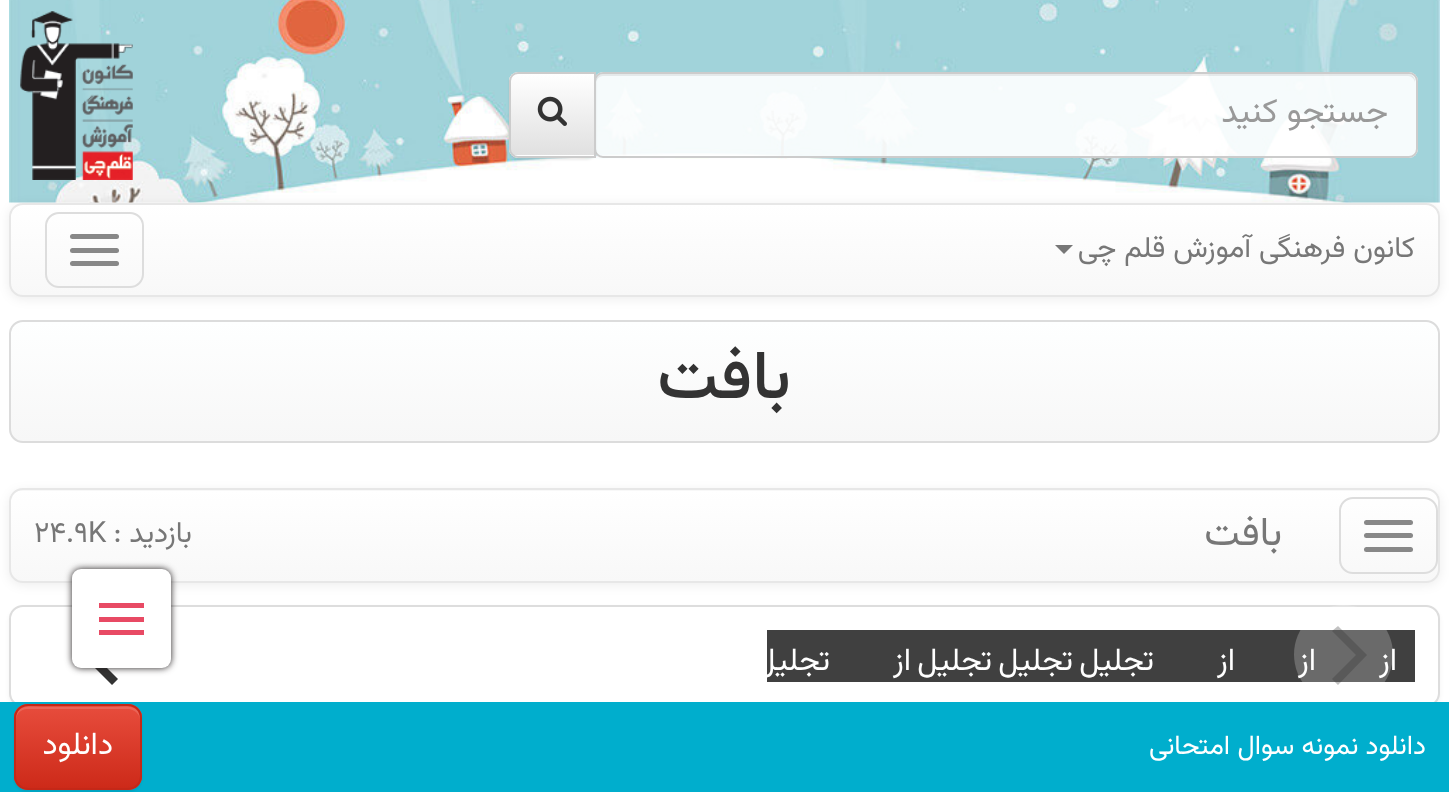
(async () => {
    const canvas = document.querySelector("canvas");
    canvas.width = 1449;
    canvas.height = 792;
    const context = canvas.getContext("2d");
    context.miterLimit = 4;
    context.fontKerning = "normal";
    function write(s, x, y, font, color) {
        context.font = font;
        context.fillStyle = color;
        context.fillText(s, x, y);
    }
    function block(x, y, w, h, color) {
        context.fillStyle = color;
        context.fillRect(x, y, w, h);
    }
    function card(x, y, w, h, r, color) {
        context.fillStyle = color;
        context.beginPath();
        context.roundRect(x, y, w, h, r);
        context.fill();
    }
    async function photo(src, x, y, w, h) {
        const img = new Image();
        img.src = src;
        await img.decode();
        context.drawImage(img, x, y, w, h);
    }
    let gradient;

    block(0, 0, 1449, 792, "rgb(255, 255, 255)");
    await photo("media/1.png", 9, 0, 1431, 203);
    card(594, 72, 824, 86, 9, "rgba(255, 255, 255, 0.9)");
    context.fillStyle = "rgba(0, 0, 0, 0.07)";
    context.beginPath();
    context.moveTo(603, 76);
    context.lineTo(1408, 76);
    context.bezierCurveTo(1412, 76, 1415, 80, 1415, 83);
    context.lineTo(1415, 81);
    context.bezierCurveTo(1415, 77, 1412, 74, 1408, 74);
    context.lineTo(603, 74);
    context.bezierCurveTo(599, 74, 596, 77, 596, 81);
    context.lineTo(596, 83);
    context.bezierCurveTo(596, 80, 599, 76, 603, 76);
    context.closePath();
    context.fill();
    context.beginPath();
    context.roundRect(595, 73, 822, 84, 8);
    context.strokeStyle = "rgb(204, 204, 204)";
    context.lineWidth = 2;
    context.stroke();
    context.direction = "rtl";
    write("جستجو کنید", 1388, 122, "33.75px Vazirmatn", "rgb(153, 153, 153)");
    context.fillStyle = "rgba(0, 0, 0, 0.07)";
    context.filter = "blur(1px)";
    context.beginPath();
    context.roundRect(509, 74, 87, 86, 9);
    context.fill();
    context.filter = "none";
    context.fillStyle = "rgb(255, 255, 255)";
    context.beginPath();
    context.roundRect(509, 72, 87, 86, [9, 0, 0, 9]);
    context.fill();
    context.save();
    context.beginPath();
    context.roundRect(509, 72, 87, 86, [9, 0, 0, 9]);
    context.clip();
    gradient = context.createLinearGradient(552, 74, 552, 155);
    gradient.addColorStop(0, "rgb(255, 255, 255)");
    gradient.addColorStop(1, "rgb(224, 224, 224)");
    context.fillStyle = gradient;
    context.fillRect(509, 74, 85, 81);
    context.restore();
    context.beginPath();
    context.roundRect(510, 73, 85, 84, [8, 0, 0, 8]);
    context.stroke();
    await photo("media/2.png", 537, 96, 30, 30);
    await photo("media/3.png", 20, 11, 113, 169);
    context.fillStyle = "rgba(0, 0, 0, 0.07)";
    context.filter = "blur(5.5px)";
    context.beginPath();
    context.roundRect(9, 205, 1431, 94, 14);
    context.fill();
    context.filter = "none";
    context.save();
    context.beginPath();
    context.roundRect(9, 203, 1431, 94, 14);
    context.clip();
    gradient = context.createLinearGradient(725, 205, 725, 295);
    gradient.addColorStop(0, "rgb(255, 255, 255)");
    gradient.addColorStop(1, "rgb(248, 248, 248)");
    context.fillStyle = gradient;
    context.fillRect(9, 205, 1431, 90);
    context.restore();
    context.beginPath();
    context.roundRect(10, 204, 1429, 92, 13);
    context.strokeStyle = "rgb(231, 231, 231)";
    context.stroke();
    write("کانون فرهنگی آموزش قلم چی", 1415, 257, "29.25px Vazirmatn", "rgb(119, 119, 119)");
    context.beginPath();
    context.moveTo(1055, 245);
    context.lineTo(1073, 245);
    context.lineTo(1064, 254);
    context.closePath();
    context.fill();
    context.beginPath();
    context.roundRect(46, 213, 97, 74, 13);
    context.strokeStyle = "rgb(221, 221, 221)";
    context.stroke();
    card(70, 234, 49, 5, 2.5, "rgb(136, 136, 136)");
    card(70, 248, 49, 5, 2.5, "rgb(136, 136, 136)");
    card(70, 261, 49, 5, 2.5, "rgb(136, 136, 136)");
    context.save();
    context.beginPath();
    context.roundRect(9, 320, 1431, 123, 14);
    context.clip();
    gradient = context.createLinearGradient(725, 322, 725, 441);
    gradient.addColorStop(0, "rgb(254, 255, 255)");
    gradient.addColorStop(1, "rgb(247, 247, 247)");
    context.fillStyle = gradient;
    context.fillRect(9, 322, 1431, 119);
    context.restore();
    context.beginPath();
    context.roundRect(10, 321, 1429, 121, 13);
    context.strokeStyle = "rgb(220, 220, 220)";
    context.stroke();
    write("بافت", 791, 398, "500 68px Vazirmatn", "rgb(51, 51, 51)");
    context.fillStyle = "rgba(0, 0, 0, 0.07)";
    context.filter = "blur(5.5px)";
    context.beginPath();
    context.roundRect(9, 491, 1431, 94, 14);
    context.fill();
    context.filter = "none";
    card(9, 488, 1431, 95, 14, "rgb(248, 248, 248)");
    context.save();
    context.beginPath();
    context.roundRect(9, 488, 1431, 95, 14);
    context.clip();
    gradient = context.createLinearGradient(725, 490, 725, 581);
    gradient.addColorStop(0, "rgb(255, 255, 255)");
    gradient.addColorStop(1, "rgb(248, 248, 248)");
    context.fillStyle = gradient;
    context.fillRect(9, 491, 1431, 90);
    context.restore();
    context.beginPath();
    context.roundRect(10, 489, 1429, 93, 13);
    context.strokeStyle = "rgb(231, 231, 231)";
    context.stroke();
    context.beginPath();
    context.roundRect(1340, 498, 97, 75, 13);
    context.strokeStyle = "rgb(221, 221, 221)";
    context.stroke();
    card(1364, 520, 49, 5, 2.5, "rgb(136, 136, 136)");
    card(1364, 533, 49, 5, 2.5, "rgb(136, 136, 136)");
    card(1364, 547, 49, 5, 2.5, "rgb(136, 136, 136)");
    write("بافت", 1282, 545, "40px Vazirmatn", "rgb(119, 119, 119)");
    write("بازدید :", 192, 542, "29.25px Vazirmatn", "rgb(119, 119, 119)");
    context.direction = "ltr";
    write("24.9K", 34, 542, "29.25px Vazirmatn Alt", "rgb(119, 119, 119)");
    context.fillStyle = "rgba(0, 0, 0, 0.05)";
    context.filter = "blur(2px)";
    context.beginPath();
    context.roundRect(9, 608, 1431, 101, 14);
    context.fill();
    context.filter = "none";
    context.fillStyle = "rgb(255, 255, 255)";
    context.beginPath();
    context.roundRect(10, 606, 1429, 100, 13);
    context.fill();
    context.stroke();
    block(767, 630, 648, 52, "rgb(64, 64, 64)");
    context.direction = "rtl";
    write("از", 1397, 670, "31.5px Vazirmatn", "rgb(255, 255, 255)");
    write("از", 1316, 670, "31.5px Vazirmatn", "rgb(255, 255, 255)");
    context.fillStyle = "rgba(255, 255, 255, 0.22)";
    context.beginPath();
    context.arc(1343.5, 654.5, 49.5, 0, Math.PI * 2);
    context.fill();
    context.fillStyle = "rgba(51, 51, 51, 0.3)";
    context.beginPath();
    context.moveTo(1367, 655);
    context.lineTo(1338, 626);
    context.lineTo(1332, 631);
    context.lineTo(1356, 655);
    context.lineTo(1332, 679);
    context.lineTo(1338, 685);
    context.closePath();
    context.fill();
    context.fillStyle = "rgba(255, 255, 255, 0.75)";
    context.beginPath();
    context.arc(105.5, 654.5, 49.5, 0, Math.PI * 2);
    context.fill();
    context.fillStyle = "rgb(51, 51, 51)";
    context.beginPath();
    context.moveTo(82, 655);
    context.lineTo(112, 685);
    context.lineTo(118, 679);
    context.lineTo(94, 655);
    context.lineTo(118, 631);
    context.lineTo(112, 626);
    context.closePath();
    context.fill();
    write("از", 1235, 670, "31.5px Vazirmatn", "rgb(255, 255, 255)");
    write("تجلیل", 1154, 670, "31.5px Vazirmatn", "rgb(255, 255, 255)");
    write("تجلیل", 1073, 670, "31.5px Vazirmatn", "rgb(255, 255, 255)");
    write("تجلیل", 992, 670, "31.5px Vazirmatn", "rgb(255, 255, 255)");
    write("از", 911, 670, "31.5px Vazirmatn", "rgb(255, 255, 255)");
    context.save();
    context.beginPath();
    context.rect(767, 630, 81, 52);
    context.clip();
    write("تجلیل", 830, 670, "31.5px Vazirmatn", "rgb(255, 255, 255)");
    context.restore();
    context.fillStyle = "rgb(35, 31, 32)";
    context.filter = "blur(3.5px)";
    context.beginPath();
    context.roundRect(72, 569, 99, 99, 9);
    context.fill();
    context.filter = "none";
    card(72, 569, 99, 99, 9, "rgb(255, 255, 255)");
    block(99, 617, 45, 5, "rgb(232, 74, 100)");
    block(99, 603, 45, 5, "rgb(232, 74, 100)");
    block(99, 630, 45, 5, "rgb(232, 74, 100)");
    block(0, 702, 1449, 90, "rgb(0, 174, 205)");
    write("دانلود نمونه سوال امتحانی", 1426, 754, "27px Vazirmatn", "rgb(255, 255, 255)");
    context.fillStyle = "rgba(0, 0, 0, 0.07)";
    context.filter = "blur(1px)";
    context.beginPath();
    context.roundRect(14, 707, 128, 85, 14);
    context.fill();
    context.filter = "none";
    card(14, 704, 128, 86, 14, "rgb(231, 76, 60)");
    context.save();
    context.beginPath();
    context.roundRect(14, 704, 128, 86, 14);
    context.clip();
    gradient = context.createLinearGradient(78, 707, 78, 788);
    gradient.addColorStop(0, "rgb(231, 76, 60)");
    gradient.addColorStop(1, "rgb(205, 42, 25)");
    context.fillStyle = gradient;
    context.fillRect(14, 707, 128, 81);
    context.restore();
    context.fillStyle = "rgba(255, 255, 255, 0.15)";
    context.beginPath();
    context.moveTo(27, 709);
    context.lineTo(128, 709);
    context.bezierCurveTo(134, 709, 140, 714, 140, 720);
    context.bezierCurveTo(140, 703, 124, 707, 112, 707);
    context.lineTo(44, 707);
    context.bezierCurveTo(32, 707, 16, 703, 16, 720);
    context.bezierCurveTo(16, 714, 21, 709, 27, 709);
    context.closePath();
    context.fill();
    context.beginPath();
    context.roundRect(15, 705, 126, 84, 13);
    context.strokeStyle = "rgb(196, 40, 24)";
    context.stroke();
    write("دانلود", 113, 754, "31.5px Vazirmatn", "rgb(255, 255, 255)");
})();
